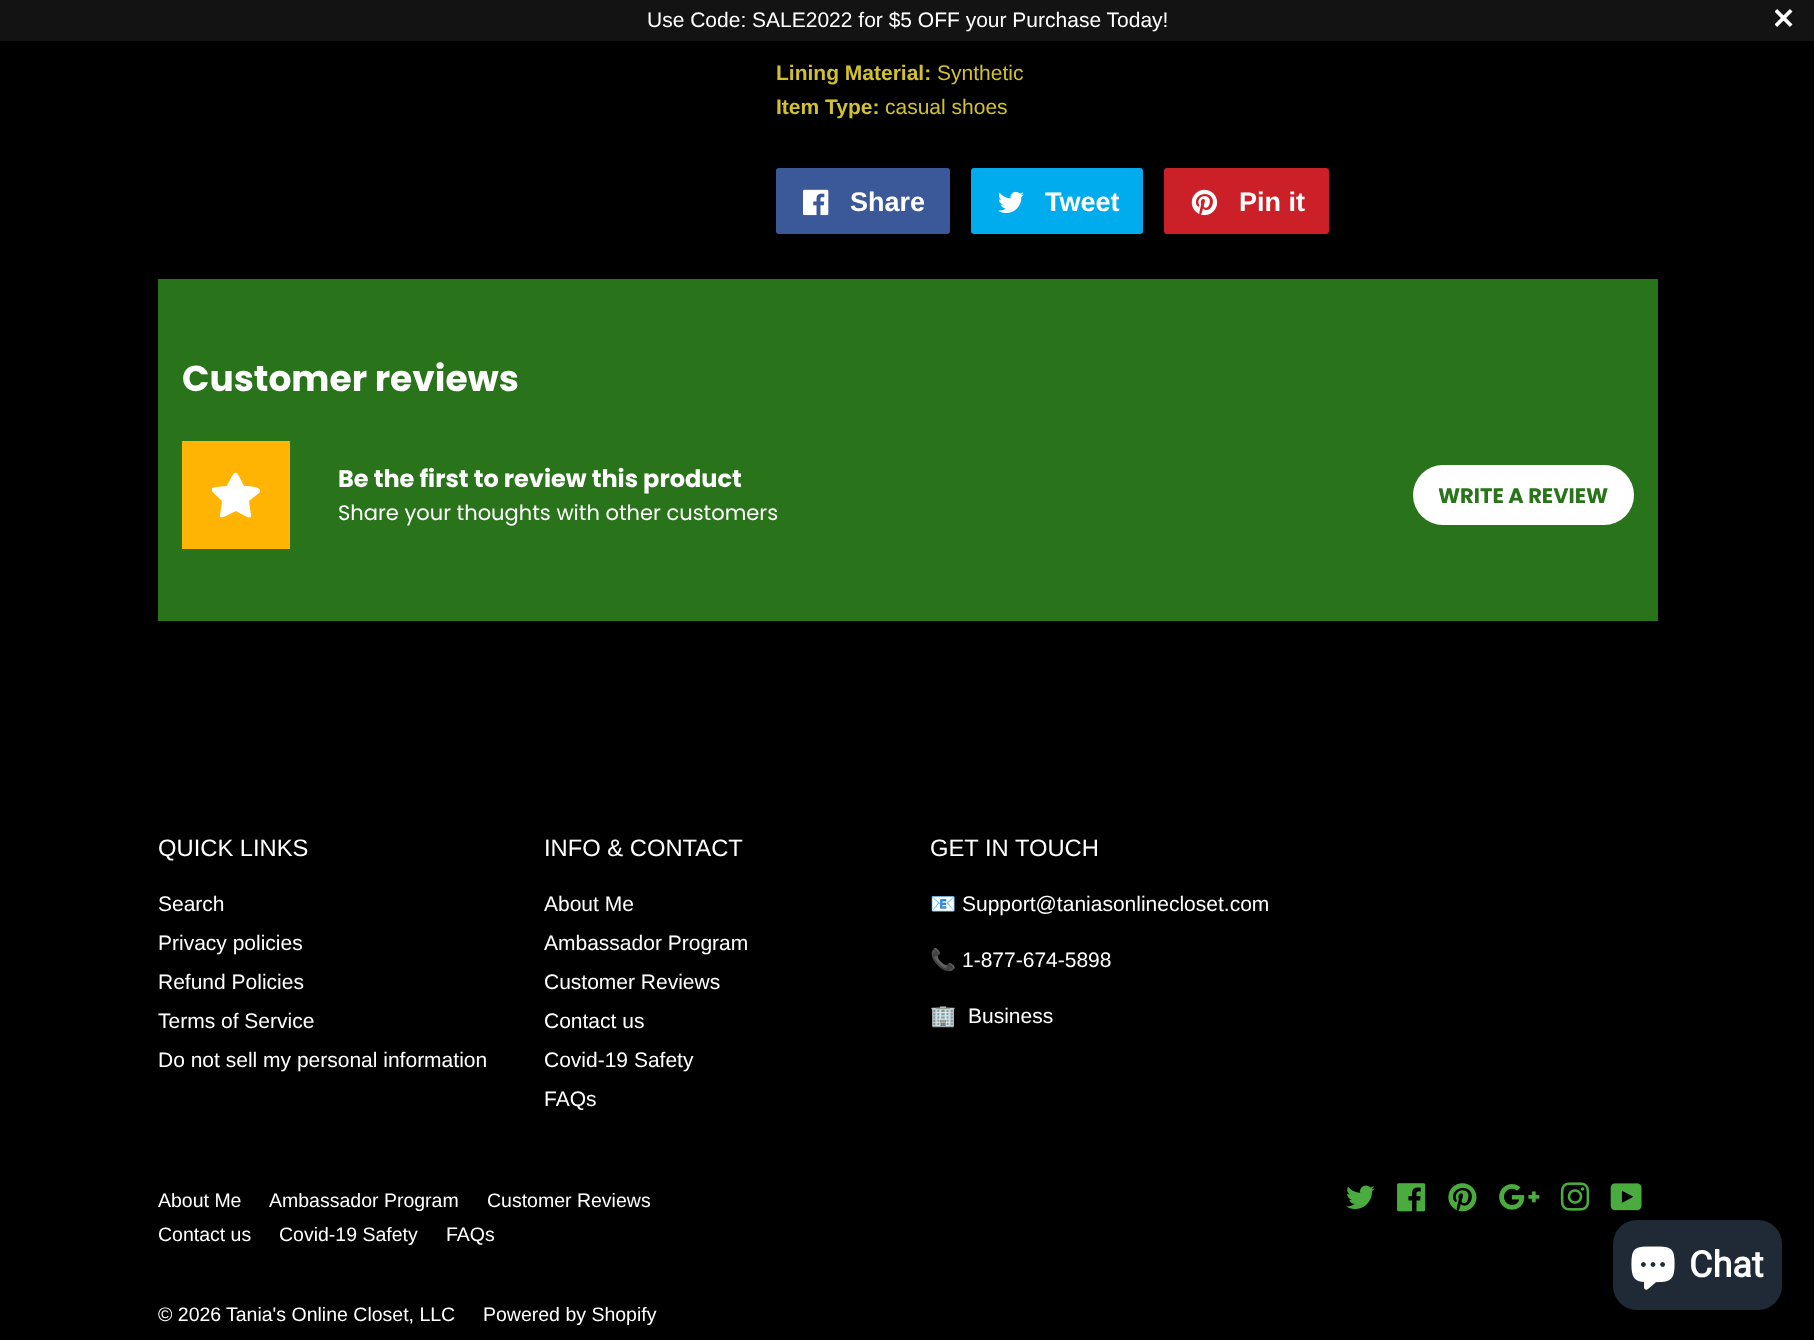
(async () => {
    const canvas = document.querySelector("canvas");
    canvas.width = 1814;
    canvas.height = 1340;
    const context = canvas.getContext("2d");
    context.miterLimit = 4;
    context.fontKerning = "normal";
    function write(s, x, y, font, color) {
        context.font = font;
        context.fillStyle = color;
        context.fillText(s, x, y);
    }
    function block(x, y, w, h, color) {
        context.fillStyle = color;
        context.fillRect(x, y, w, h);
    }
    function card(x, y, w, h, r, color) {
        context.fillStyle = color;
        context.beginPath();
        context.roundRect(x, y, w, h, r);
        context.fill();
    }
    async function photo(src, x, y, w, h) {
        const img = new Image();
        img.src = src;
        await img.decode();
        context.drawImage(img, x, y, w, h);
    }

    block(0, 0, 1814, 1340, "rgb(0, 0, 0)");
    block(0, 0, 1814, 41, "rgb(20, 19, 19)");
    write("Use Code: SALE2022 for $5 OFF your Purchase Today!", 647, 27, "21px Liberation Sans", "rgb(255, 255, 255)");
    await photo("media/1.png", 1775, 9, 18, 18);
    write("Lining Material:", 776, 80, "bold 21px Arimo", "rgb(210, 193, 47)");
    write("Synthetic", 937, 80, "21px Arimo", "rgb(210, 193, 47)");
    write("Item Type:", 776, 114, "bold 21px Arimo", "rgb(210, 193, 47)");
    write("casual shoes", 885, 114, "21px Arimo", "rgb(210, 193, 47)");
    card(776, 168, 174, 66, 3, "rgb(59, 89, 152)");
    await photo("media/2.png", 803, 189, 26, 27);
    write("Share", 850, 211, "bold 27px Liberation Sans", "rgb(255, 255, 255)");
    card(971, 168, 172, 66, 3, "rgb(0, 172, 237)");
    await photo("media/3.png", 998, 191, 26, 22);
    write("Tweet", 1045, 211, "bold 27px Liberation Sans", "rgb(255, 255, 255)");
    card(1164, 168, 165, 66, 3, "rgb(203, 32, 39)");
    await photo("media/4.png", 1191, 189, 27, 27);
    write("Pin it", 1239, 211, "bold 27px Liberation Sans", "rgb(255, 255, 255)");
    block(158, 279, 1500, 342, "rgb(41, 116, 26)");
    write("Customer reviews", 182, 391, "bold 36px Poppins", "rgb(255, 255, 255)");
    block(182, 441, 108, 108, "rgb(255, 179, 3)");
    context.save();
    context.beginPath();
    context.rect(212, 472, 48, 46);
    context.clip();
    context.fillStyle = "rgb(255, 255, 255)";
    context.beginPath();
    context.moveTo(259, 493);
    context.bezierCurveTo(265, 486, 245, 486, 244, 486);
    context.bezierCurveTo(235, 468, 236, 468, 227, 486);
    context.bezierCurveTo(207, 488, 207, 487, 222, 501);
    context.lineTo(220, 515);
    context.bezierCurveTo(219, 521, 229, 514, 236, 511);
    context.bezierCurveTo(242, 514, 252, 521, 251, 515);
    context.lineTo(249, 501);
    context.closePath();
    context.fill();
    context.restore();
    write("Be the first to review this product", 338, 487, "bold 24px Poppins", "rgb(255, 255, 255)");
    write("Share your thoughts with other customers", 338, 520, "21px Poppins", "rgb(255, 255, 255)");
    card(1413, 465, 221, 60, 30, "rgb(255, 255, 255)");
    context.save();
    context.beginPath();
    context.rect(1439, 479, 169, 34);
    context.clip();
    write("WRITE A REVIEW", 1438, 503, "bold 21px Poppins", "rgb(41, 116, 26)");
    context.restore();
    write("QUICK LINKS", 158, 856, "23.75px Arimo", "rgb(255, 255, 255)");
    write("Search", 158, 911, "21px Arimo", "rgb(255, 255, 255)");
    write("Privacy policies", 158, 950, "21px Arimo", "rgb(255, 255, 255)");
    write("Refund Policies", 158, 989, "21px Arimo", "rgb(255, 255, 255)");
    write("Terms of Service", 158, 1028, "21px Arimo", "rgb(255, 255, 255)");
    write("Do not sell my personal information", 158, 1067, "21px Arimo", "rgb(255, 255, 255)");
    write("INFO & CONTACT", 544, 856, "23.75px Arimo", "rgb(255, 255, 255)");
    write("About Me", 544, 911, "21px Arimo", "rgb(255, 255, 255)");
    write("Ambassador Program", 544, 950, "21px Arimo", "rgb(255, 255, 255)");
    write("Customer Reviews", 544, 989, "21px Arimo", "rgb(255, 255, 255)");
    write("Contact us", 544, 1028, "21px Arimo", "rgb(255, 255, 255)");
    write("Covid-19 Safety", 544, 1067, "21px Arimo", "rgb(255, 255, 255)");
    write("FAQs", 544, 1106, "21px Arimo", "rgb(255, 255, 255)");
    write("GET IN TOUCH", 930, 856, "23.75px Arimo", "rgb(255, 255, 255)");
    write("📧", 930, 911, "21px Noto Color Emoji", "rgb(255, 255, 255)");
    write("Support@taniasonlinecloset.com", 962, 911, "21px Arimo", "rgb(255, 255, 255)");
    write("📞", 930, 967, "21px Noto Color Emoji", "rgb(255, 255, 255)");
    write("1-877-674-5898", 962, 967, "21px Arimo", "rgb(255, 255, 255)");
    write("🏢", 930, 1023, "21px Noto Color Emoji", "rgb(255, 255, 255)");
    write("Business", 968, 1023, "21px Arimo", "rgb(255, 255, 255)");
    write("About Me", 158, 1207, "19.5px Arimo", "rgb(255, 255, 255)");
    write("Ambassador Program", 269, 1207, "19.5px Arimo", "rgb(255, 255, 255)");
    write("Customer Reviews", 487, 1207, "19.5px Arimo", "rgb(255, 255, 255)");
    write("Contact us", 158, 1241, "19.5px Arimo", "rgb(255, 255, 255)");
    write("Covid-19 Safety", 279, 1241, "19.5px Arimo", "rgb(255, 255, 255)");
    write("FAQs", 446, 1241, "19.5px Arimo", "rgb(255, 255, 255)");
    await photo("media/5.png", 1346, 1185, 29, 24);
    await photo("media/6.png", 1397, 1183, 29, 29);
    await photo("media/7.png", 1448, 1183, 29, 29);
    await photo("media/8.png", 1499, 1184, 41, 26);
    await photo("media/9.png", 1560, 1182, 30, 29);
    await photo("media/10.png", 1610, 1183, 32, 28);
    write("© 2026", 158, 1321, "19.5px Arimo", "rgb(255, 255, 255)");
    write("Tania's Online Closet, LLC", 226, 1321, "19.5px Arimo", "rgb(255, 255, 255)");
    write("Powered by Shopify", 483, 1321, "19.5px Arimo", "rgb(255, 255, 255)");
    card(1613, 1220, 169, 90, 24, "rgb(32, 42, 54)");
    await photo("media/11.png", 1631, 1246, 44, 44);
    write("Chat", 1689, 1277, "bold 36px Roboto", "rgb(255, 255, 255)");
})();
